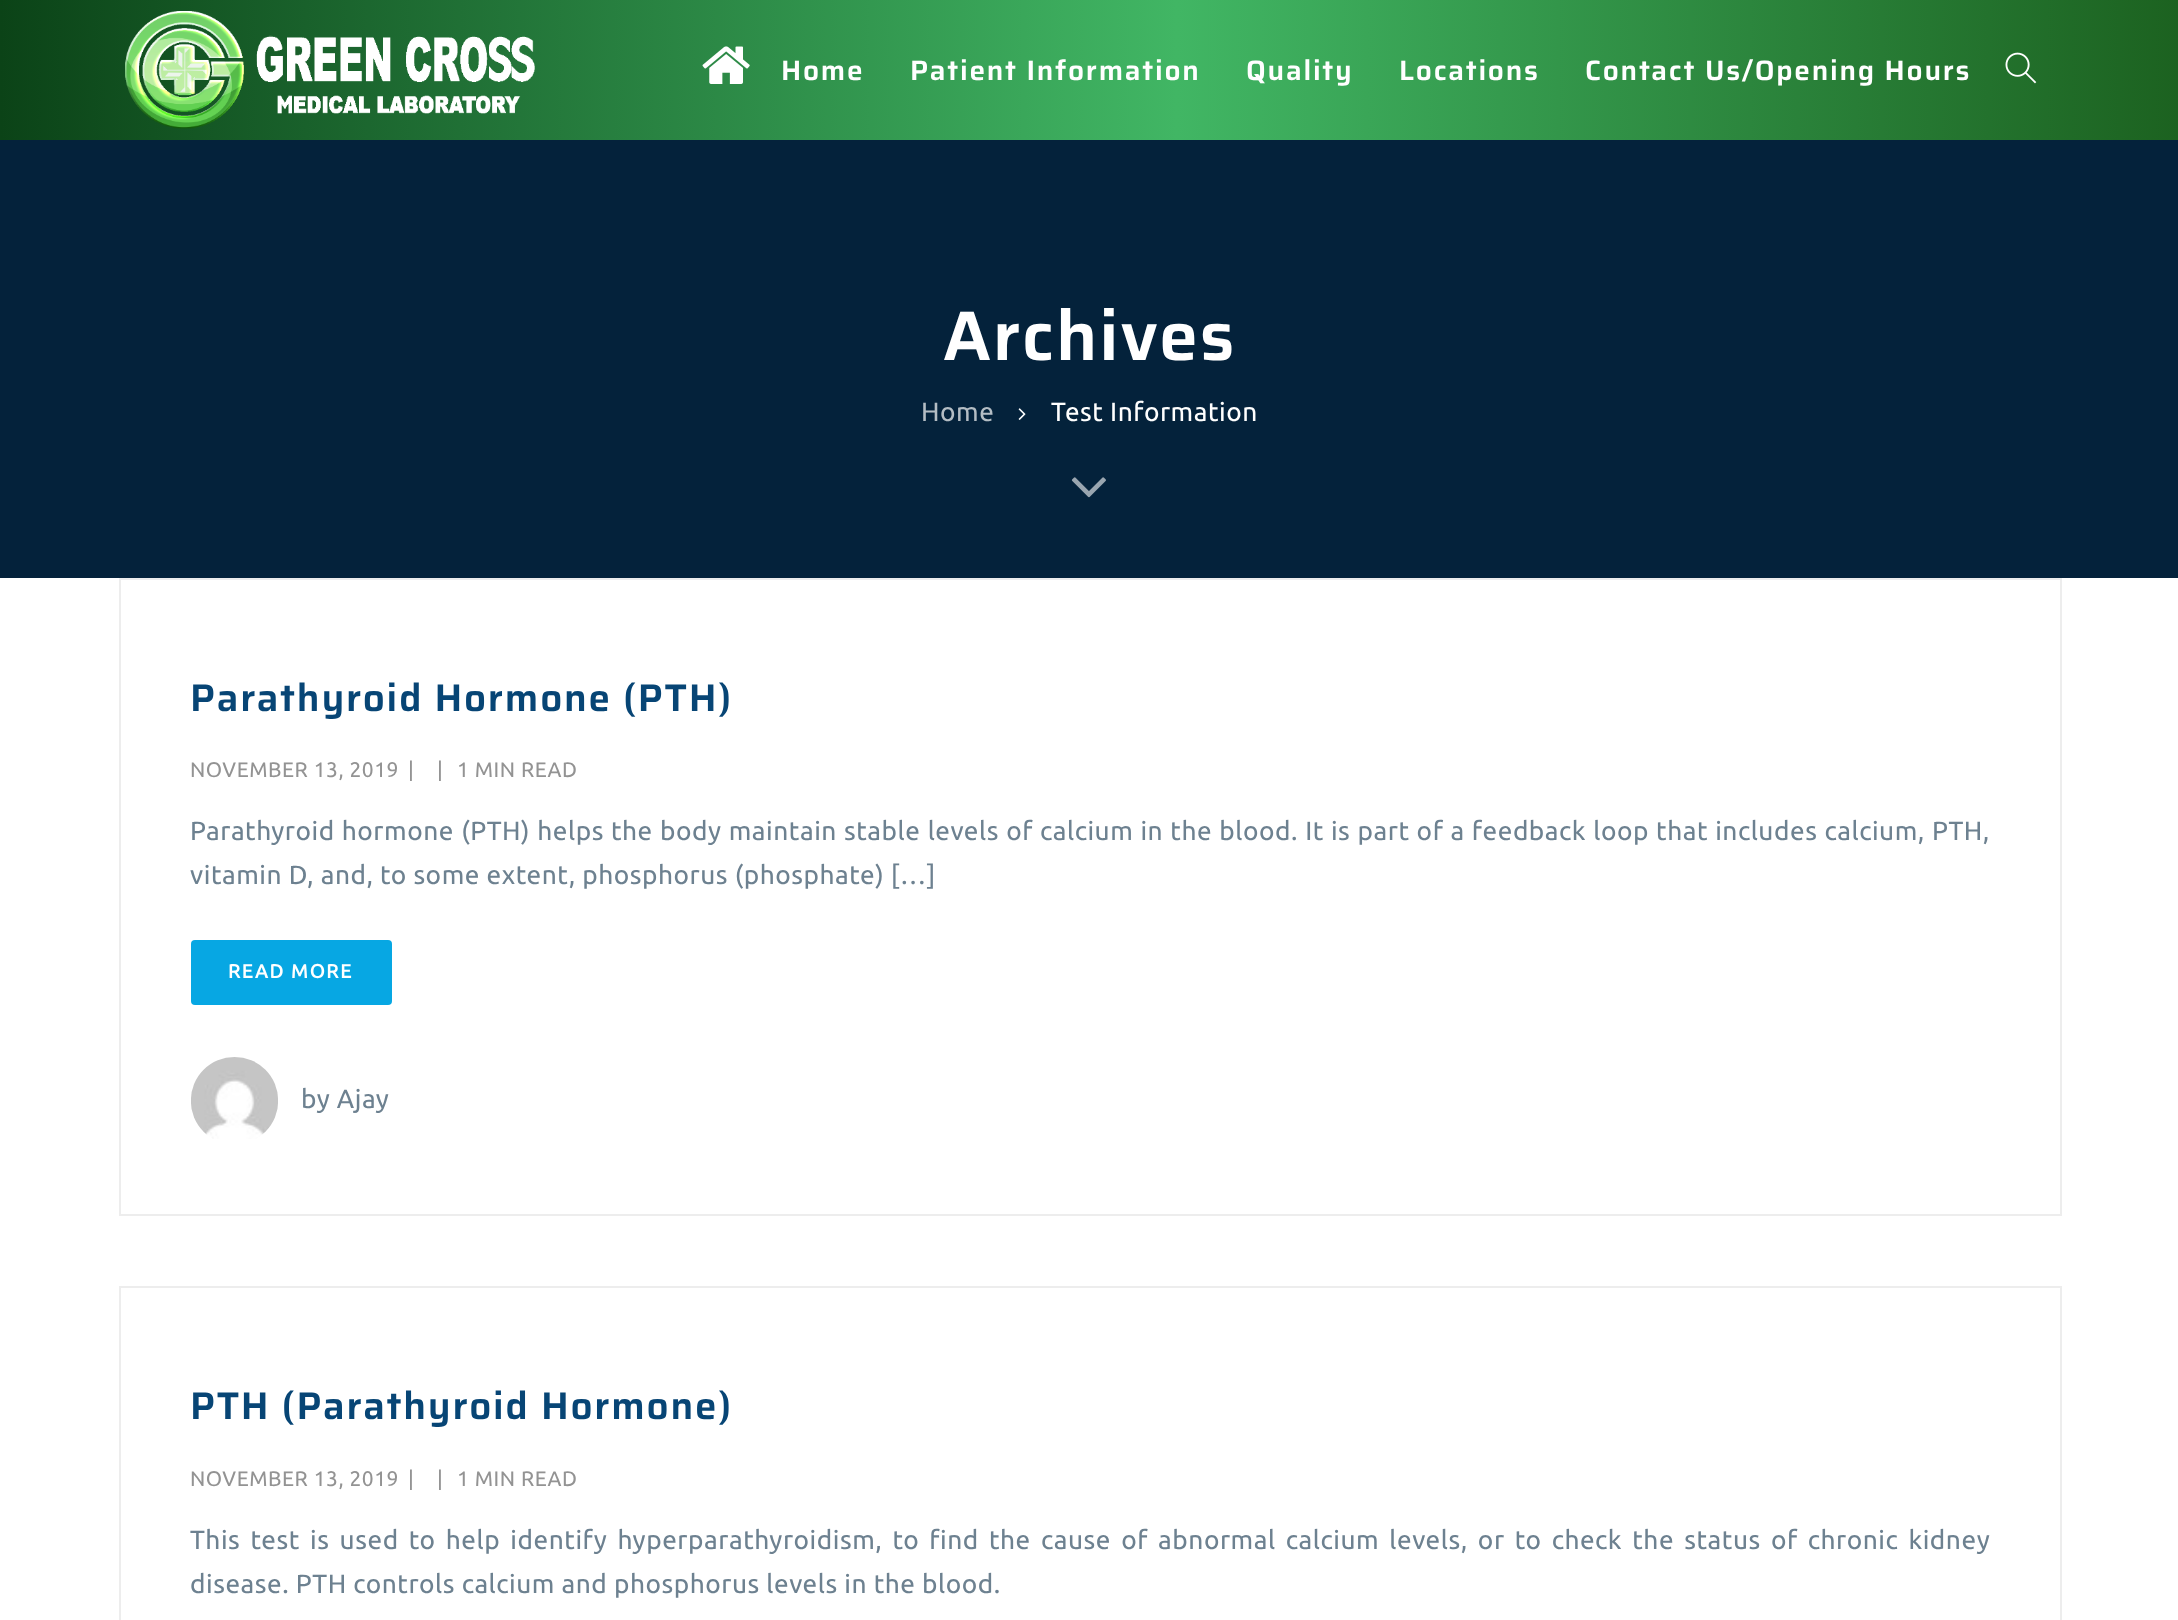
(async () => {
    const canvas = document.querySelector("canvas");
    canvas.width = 2178;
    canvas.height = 1620;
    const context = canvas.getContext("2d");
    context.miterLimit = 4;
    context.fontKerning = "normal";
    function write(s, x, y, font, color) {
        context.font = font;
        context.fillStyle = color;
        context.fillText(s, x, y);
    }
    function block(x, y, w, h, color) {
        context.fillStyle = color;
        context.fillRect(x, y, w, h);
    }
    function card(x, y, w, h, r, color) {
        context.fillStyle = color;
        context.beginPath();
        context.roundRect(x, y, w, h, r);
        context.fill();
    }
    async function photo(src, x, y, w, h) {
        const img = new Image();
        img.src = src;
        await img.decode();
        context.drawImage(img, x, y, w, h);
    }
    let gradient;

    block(0, 0, 2178, 1620, "rgb(255, 255, 255)");
    gradient = context.createLinearGradient(0, 70, 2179, 70);
    gradient.addColorStop(0, "rgb(11, 67, 23)");
    gradient.addColorStop(0.54, "rgb(65, 182, 100)");
    gradient.addColorStop(1, "rgb(28, 98, 32)");
    context.fillStyle = gradient;
    context.fillRect(0, 0, 2178, 140);
    await photo("media/1.png", 125, 11, 410, 118);
    await photo("media/2.png", 702, 46, 48, 38);
    context.letterSpacing = "1.75px";
    write("Home", 781, 80, "600 28px Saira", "rgb(255, 255, 255)");
    write("Patient Information", 910, 80, "600 28px Saira", "rgb(255, 255, 255)");
    write("Quality", 1246, 80, "600 28px Saira", "rgb(255, 255, 255)");
    write("Locations", 1399, 80, "600 28px Saira", "rgb(255, 255, 255)");
    write("Contact Us/Opening Hours", 1585, 80, "600 28px Saira", "rgb(255, 255, 255)");
    await photo("media/3.png", 2005, 52, 32, 32);
    block(0, 140, 2178, 438, "rgb(4, 34, 59)");
    write("Archives", 943, 360, "600 70px Saira", "rgb(255, 255, 255)");
    context.letterSpacing = "0.53px";
    write("Home", 921, 421, "26.25px Ubuntu", "rgb(180, 189, 196)");
    await photo("media/4.png", 1018, 408, 8, 12);
    write("Test Information", 1051, 421, "26.25px Ubuntu", "rgb(255, 255, 255)");
    await photo("media/5.png", 1071, 477, 35, 21);
    context.strokeStyle = "rgb(237, 237, 237)";
    context.lineWidth = 2;
    context.strokeRect(120, 579, 1941, 636);
    context.letterSpacing = "1.75px";
    write("Parathyroid Hormone (PTH)", 190, 711, "600 38.5px Saira", "rgb(7, 69, 117)");
    context.letterSpacing = "0.53px";
    write("NOVEMBER 13, 2019", 190, 777, "21px Ubuntu", "rgb(147, 147, 147)");
    write("|", 408, 777, "21px Ubuntu", "rgb(147, 147, 147)");
    write("|", 437, 777, "21px Ubuntu", "rgb(147, 147, 147)");
    write("1 MIN READ", 457, 777, "21px Ubuntu", "rgb(147, 147, 147)");
    context.wordSpacing = "0.55px";
    write("Parathyroid hormone (PTH) helps the body maintain stable levels of calcium in the blood. It is part of a feedback loop that includes calcium, PTH,", 190, 840, "26.25px Ubuntu", "rgb(109, 129, 144)");
    context.wordSpacing = "0px";
    write("vitamin D, and, to some extent, phosphorus (phosphate) […]", 190, 884, "26.25px Ubuntu", "rgb(109, 129, 144)");
    card(191, 940, 201, 65, 4, "rgb(7, 167, 227)");
    context.letterSpacing = "1.75px";
    write("READ MORE", 228, 978, "bold 19.25px Ubuntu", "rgb(255, 255, 255)");
    await photo("media/6.png", 191, 1057, 87, 82);
    context.letterSpacing = "0.53px";
    write("by Ajay", 301, 1108, "26.25px Ubuntu", "rgb(109, 129, 144)");
    context.strokeRect(120, 1287, 1941, 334);
    context.letterSpacing = "1.75px";
    write("PTH (Parathyroid Hormone)", 190, 1419, "600 38.5px Saira", "rgb(7, 69, 117)");
    context.letterSpacing = "0.53px";
    write("NOVEMBER 13, 2019", 190, 1486, "21px Ubuntu", "rgb(147, 147, 147)");
    write("|", 408, 1486, "21px Ubuntu", "rgb(147, 147, 147)");
    write("|", 437, 1486, "21px Ubuntu", "rgb(147, 147, 147)");
    write("1 MIN READ", 457, 1486, "21px Ubuntu", "rgb(147, 147, 147)");
    context.wordSpacing = "3.6px";
    write("This test is used to help identify hyperparathyroidism, to find the cause of abnormal calcium levels, or to check the status of chronic kidney", 190, 1549, "26.25px Ubuntu", "rgb(109, 129, 144)");
    context.wordSpacing = "0px";
    write("disease. PTH controls calcium and phosphorus levels in the blood.", 190, 1593, "26.25px Ubuntu", "rgb(109, 129, 144)");
})();
